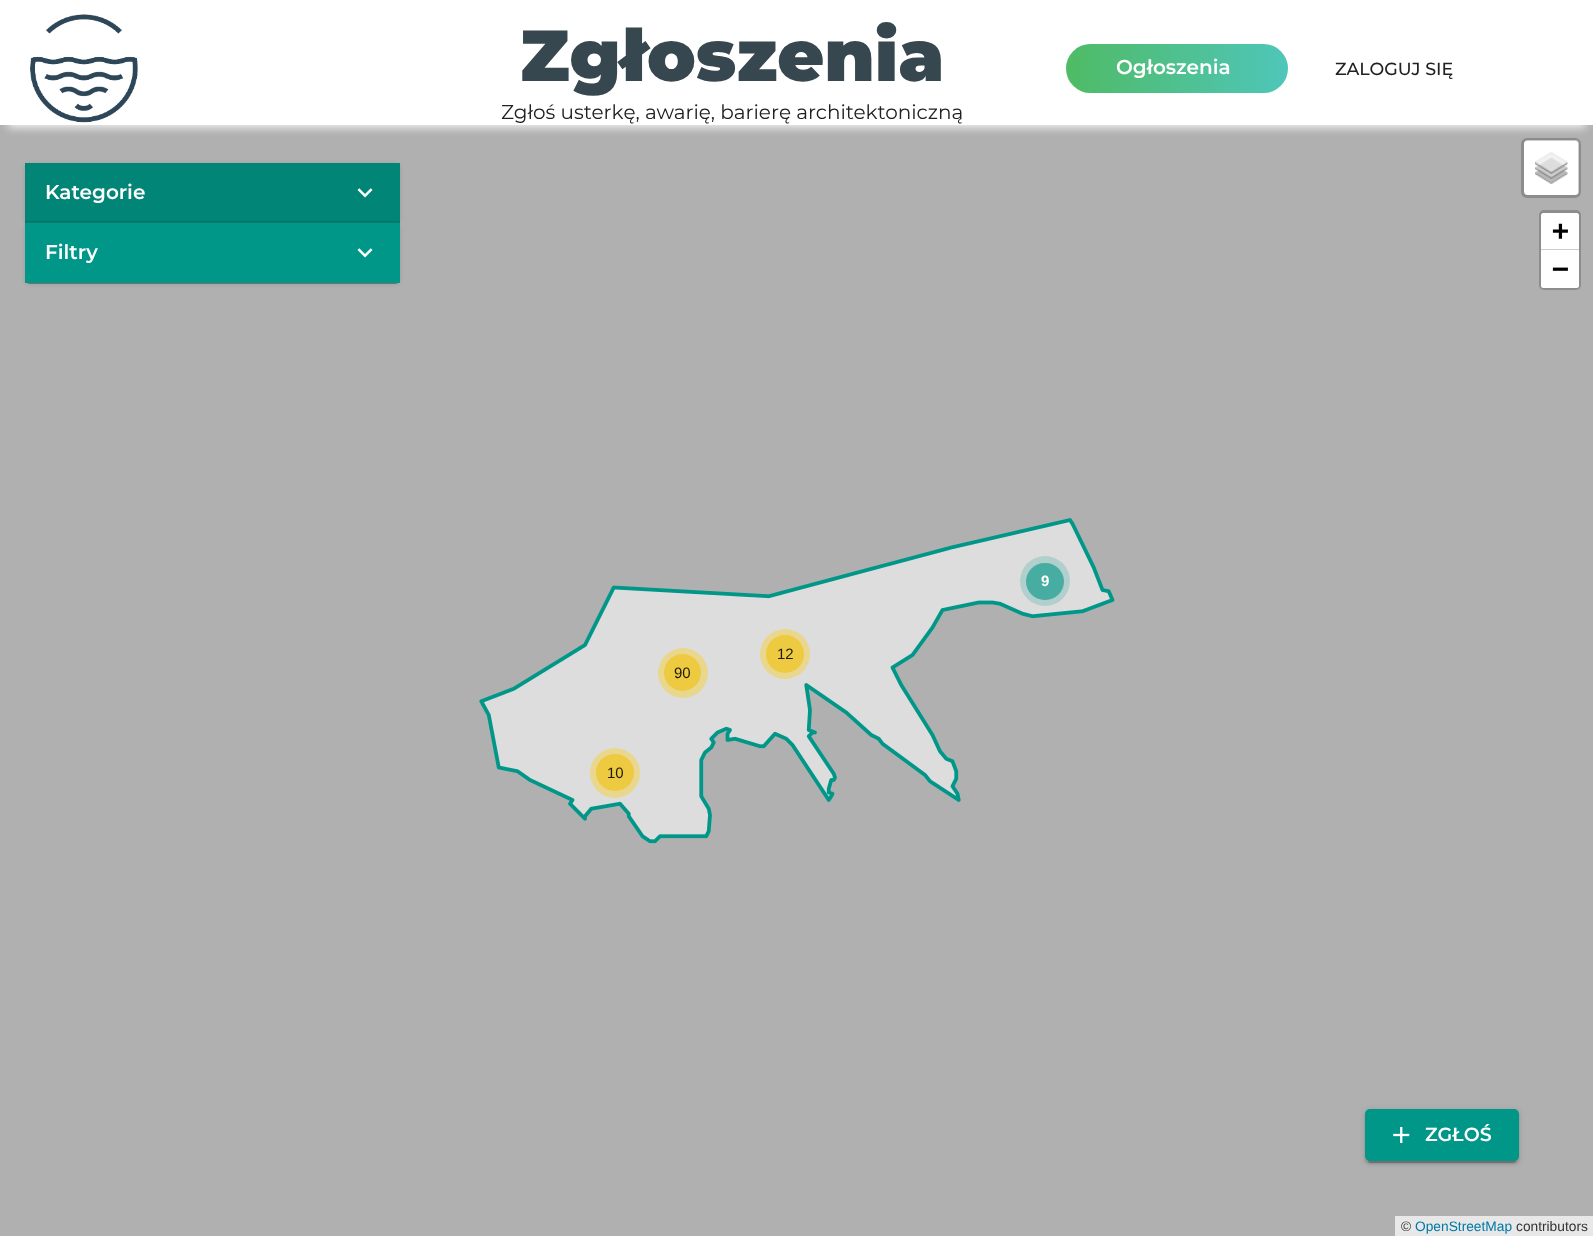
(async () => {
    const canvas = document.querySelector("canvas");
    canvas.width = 1593;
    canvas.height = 1236;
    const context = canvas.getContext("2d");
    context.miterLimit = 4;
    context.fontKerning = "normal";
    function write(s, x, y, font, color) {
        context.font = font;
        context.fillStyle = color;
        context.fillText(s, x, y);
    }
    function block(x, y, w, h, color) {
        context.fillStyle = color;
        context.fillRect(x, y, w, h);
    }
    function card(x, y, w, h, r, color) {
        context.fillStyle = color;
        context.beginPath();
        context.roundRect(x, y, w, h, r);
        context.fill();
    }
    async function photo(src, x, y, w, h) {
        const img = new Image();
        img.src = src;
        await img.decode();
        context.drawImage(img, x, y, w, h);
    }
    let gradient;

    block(0, 0, 1593, 1236, "rgb(221, 221, 221)");
    await photo("media/4.png", 0, 125, 1593, 1111);
    context.fillStyle = "rgb(238, 238, 238)";
    context.filter = "blur(4px)";
    context.beginPath();
    context.rect(8, 18, 1578, 110);
    context.fill();
    context.filter = "none";
    block(0, 0, 1593, 125, "rgb(255, 255, 255)");
    await photo("media/1.png", 30, 14, 108, 109);
    write("Zgłoszenia", 520, 81, "900 72px Montserrat", "rgb(55, 71, 79)");
    write("Zgłoś usterkę, awarię, barierę architektoniczną", 501, 119, "20px Montserrat", "rgb(33, 33, 33)");
    gradient = context.createLinearGradient(1066, 68, 1288, 68);
    gradient.addColorStop(0, "rgb(79, 187, 101)");
    gradient.addColorStop(1, "rgb(79, 198, 186)");
    context.fillStyle = gradient;
    context.beginPath();
    context.roundRect(1066, 44, 222, 49, 24.5);
    context.fill();
    write("Ogłoszenia", 1116, 74, "600 20px Montserrat", "rgb(255, 255, 255)");
    write("ZALOGUJ SIĘ", 1335, 75, "500 17.5px Montserrat", "rgb(33, 33, 33)");
    context.fillStyle = "rgba(0, 0, 0, 0.12)";
    context.filter = "blur(2px)";
    context.beginPath();
    context.roundRect(25, 164, 375, 60, 5);
    context.fill();
    context.filter = "none";
    block(25, 163, 375, 60, "rgb(0, 133, 119)");
    write("Kategorie", 45, 199, "600 20px Montserrat", "rgb(255, 255, 255)");
    await photo("media/2.png", 357, 188, 16, 10);
    context.fillStyle = "rgba(0, 0, 0, 0.12)";
    context.filter = "blur(2px)";
    context.beginPath();
    context.roundRect(25, 224, 375, 60, 5);
    context.fill();
    context.filter = "none";
    context.fillStyle = "rgba(0, 0, 0, 0.14)";
    context.filter = "blur(0.5px)";
    context.beginPath();
    context.roundRect(25, 224, 375, 60, 5);
    context.fill();
    context.filter = "none";
    context.fillStyle = "rgba(0, 0, 0, 0.2)";
    context.filter = "blur(0.5px)";
    context.beginPath();
    context.roundRect(26, 226, 373, 58, 4);
    context.fill();
    context.filter = "none";
    block(25, 221, 375, 1, "rgb(0, 116, 103)");
    block(25, 223, 375, 60, "rgb(0, 150, 136)");
    write("Filtry", 45, 259, "600 20px Montserrat", "rgb(255, 255, 255)");
    await photo("media/3.png", 357, 248, 16, 10);
    context.fillStyle = "rgb(177, 207, 204)";
    context.beginPath();
    context.arc(1045, 581, 25, 0, Math.PI * 2);
    context.fill();
    card(1026, 563, 38, 37, 18.5, "rgb(71, 173, 163)");
    write("9", 1041, 586, "bold 15px Liberation Sans", "rgb(255, 255, 255)");
    context.fillStyle = "rgb(233, 215, 141)";
    context.beginPath();
    context.arc(785, 654, 25, 0, Math.PI * 2);
    context.fill();
    context.fillStyle = "rgb(237, 202, 64)";
    context.beginPath();
    context.arc(785, 654, 19, 0, Math.PI * 2);
    context.fill();
    write("12", 777, 659, "15px Liberation Sans", "rgb(31, 26, 8)");
    context.fillStyle = "rgb(233, 215, 141)";
    context.beginPath();
    context.arc(683, 673, 25, 0, Math.PI * 2);
    context.fill();
    context.fillStyle = "rgb(237, 202, 64)";
    context.beginPath();
    context.arc(682.5, 672.5, 18.5, 0, Math.PI * 2);
    context.fill();
    write("90", 674, 678, "15px Liberation Sans", "rgb(31, 26, 8)");
    context.fillStyle = "rgb(233, 215, 141)";
    context.beginPath();
    context.arc(615, 773, 25, 0, Math.PI * 2);
    context.fill();
    card(596, 754, 38, 37, 18.5, "rgb(237, 202, 64)");
    write("10", 607, 778, "15px Liberation Sans", "rgb(31, 26, 8)");
    card(1524, 140, 55, 55, 4, "rgb(255, 255, 255)");
    context.beginPath();
    context.roundRect(1522.5, 139.5, 57, 57, 4.5);
    context.strokeStyle = "rgba(0, 0, 0, 0.2)";
    context.lineWidth = 3;
    context.stroke();
    await photo("media/5.png", 1535, 152, 33, 32);
    context.beginPath();
    context.roundRect(1540.5, 211.5, 39, 77, 3.5);
    context.strokeStyle = "rgb(141, 141, 141)";
    context.stroke();
    context.beginPath();
    context.roundRect(1541, 213, 38, 37, [2.5, 2.5, 0, 0]);
    context.fill();
    block(1541, 249, 38, 1, "rgb(204, 204, 204)");
    write("+", 1552, 240, "bold 28px DejaVu Sans Mono", "rgb(0, 0, 0)");
    context.fillStyle = "rgb(255, 255, 255)";
    context.beginPath();
    context.roundRect(1541, 250, 38, 38, [0, 0, 2.5, 2.5]);
    context.fill();
    write("−", 1552, 278, "bold 28px DejaVu Sans Mono", "rgb(0, 0, 0)");
    block(1395, 1216, 198, 20, "rgb(232, 232, 232)");
    write("©", 1401, 1231, "13.75px Liberation Sans", "rgb(51, 51, 51)");
    write("OpenStreetMap", 1415, 1231, "13.75px Liberation Sans", "rgb(0, 120, 168)");
    write("contributors", 1516, 1231, "13.75px Liberation Sans", "rgb(51, 51, 51)");
    context.fillStyle = "rgba(0, 0, 0, 0.12)";
    context.filter = "blur(3px)";
    context.beginPath();
    context.roundRect(1365, 1110, 154, 53, 5);
    context.fill();
    context.filter = "none";
    context.fillStyle = "rgba(0, 0, 0, 0.14)";
    context.filter = "blur(1px)";
    context.beginPath();
    context.roundRect(1365, 1111, 154, 53, 5);
    context.fill();
    context.filter = "none";
    context.fillStyle = "rgba(0, 0, 0, 0.2)";
    context.filter = "blur(0.5px)";
    context.beginPath();
    context.roundRect(1368, 1115, 148, 48, 2.5);
    context.fill();
    context.filter = "none";
    card(1365, 1109, 154, 52, 5, "rgb(0, 150, 136)");
    await photo("media/6.png", 1393, 1127, 17, 16);
    write("ZGŁOŚ", 1425, 1141, "600 19px Montserrat", "rgb(255, 255, 255)");
})();
